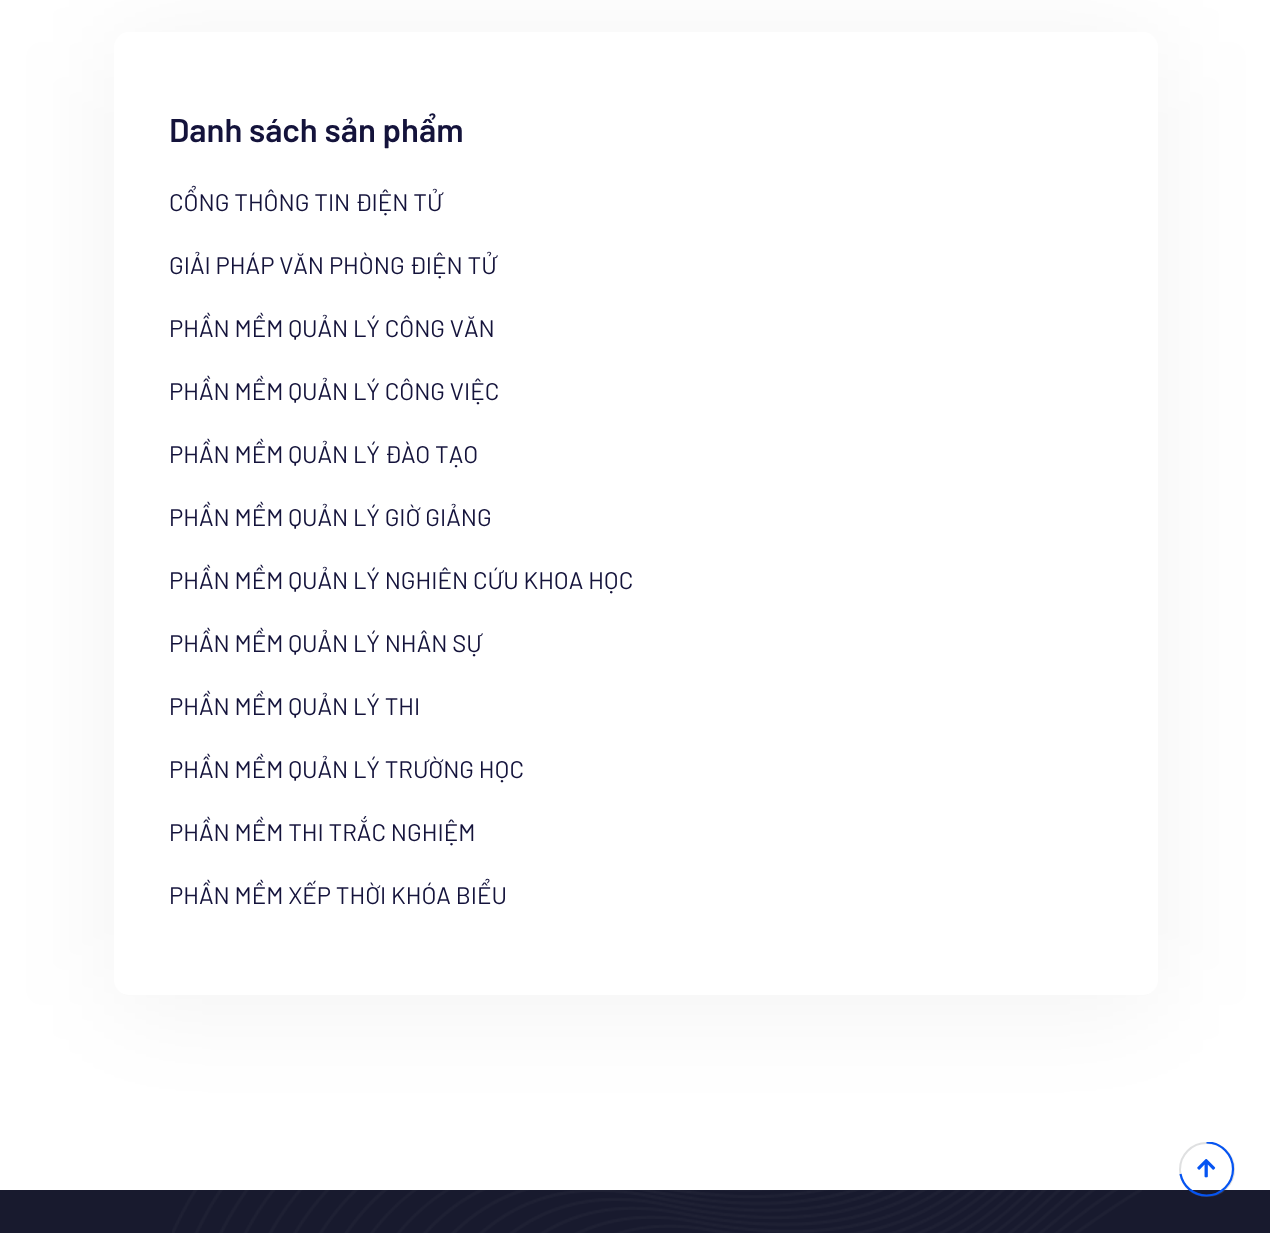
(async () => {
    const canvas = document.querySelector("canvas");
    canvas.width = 1270;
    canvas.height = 1233;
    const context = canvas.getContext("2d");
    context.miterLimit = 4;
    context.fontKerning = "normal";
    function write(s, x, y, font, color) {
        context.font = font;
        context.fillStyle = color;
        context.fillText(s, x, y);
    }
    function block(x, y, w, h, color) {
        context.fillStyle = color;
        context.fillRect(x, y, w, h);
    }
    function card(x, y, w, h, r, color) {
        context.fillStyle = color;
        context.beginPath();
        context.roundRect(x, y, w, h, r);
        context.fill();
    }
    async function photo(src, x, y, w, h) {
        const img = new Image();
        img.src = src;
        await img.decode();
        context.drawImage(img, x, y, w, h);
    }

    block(0, 0, 1270, 1233, "rgb(255, 255, 255)");
    context.fillStyle = "rgba(0, 0, 0, 0.05)";
    context.filter = "blur(52.5px)";
    context.beginPath();
    context.roundRect(114, 42, 1044, 963, 15);
    context.fill();
    context.filter = "none";
    card(114, 32, 1044, 963, 15, "rgb(255, 255, 255)");
    write("Danh sách sản phẩm", 169, 142, "600 33px Barlow", "rgb(20, 19, 59)");
    write("CỔNG THÔNG TIN ĐIỆN TỬ", 169, 211, "24px Barlow", "rgb(20, 19, 59)");
    write("GIẢI PHÁP VĂN PHÒNG ĐIỆN TỬ", 169, 274, "24px Barlow", "rgb(20, 19, 59)");
    write("PHẦN MỀM QUẢN LÝ CÔNG VĂN", 169, 337, "24px Barlow", "rgb(20, 19, 59)");
    write("PHẦN MỀM QUẢN LÝ CÔNG VIỆC", 169, 400, "24px Barlow", "rgb(20, 19, 59)");
    write("PHẦN MỀM QUẢN LÝ ĐÀO TẠO", 169, 463, "24px Barlow", "rgb(20, 19, 59)");
    write("PHẦN MỀM QUẢN LÝ GIỜ GIẢNG", 169, 526, "24px Barlow", "rgb(20, 19, 59)");
    write("PHẦN MỀM QUẢN LÝ NGHIÊN CỨU KHOA HỌC", 169, 589, "24px Barlow", "rgb(20, 19, 59)");
    write("PHẦN MỀM QUẢN LÝ NHÂN SỰ", 169, 652, "24px Barlow", "rgb(20, 19, 59)");
    write("PHẦN MỀM QUẢN LÝ THI", 169, 715, "24px Barlow", "rgb(20, 19, 59)");
    write("PHẦN MỀM QUẢN LÝ TRƯỜNG HỌC", 169, 778, "24px Barlow", "rgb(20, 19, 59)");
    write("PHẦN MỀM THI TRẮC NGHIỆM", 169, 841, "24px Barlow", "rgb(20, 19, 59)");
    write("PHẦN MỀM XẾP THỜI KHÓA BIỂU", 169, 904, "24px Barlow", "rgb(20, 19, 59)");
    block(0, 1190, 1270, 43, "rgb(24, 26, 46)");
    await photo("media/1.png", 172, 1190, 970, 43);
    context.beginPath();
    context.roundRect(1180, 1143, 54, 53, 26.5);
    context.strokeStyle = "rgba(128, 130, 134, 0.25)";
    context.lineWidth = 2;
    context.stroke();
    context.save();
    context.beginPath();
    context.rect(1179, 1142, 56, 55);
    context.clip();
    context.beginPath();
    context.moveTo(1206.5, 1142.5);
    context.bezierCurveTo(1221, 1142.5, 1233, 1154.5, 1233, 1169);
    context.bezierCurveTo(1233, 1183.5, 1221, 1195.5, 1206.5, 1195.5);
    context.bezierCurveTo(1193.5, 1195.5, 1183, 1186.5, 1180.5, 1174);
    context.strokeStyle = "rgb(5, 84, 242)";
    context.lineWidth = 2.2;
    context.stroke();
    context.restore();
    await photo("media/2.png", 1197, 1159, 19, 19);
})();
